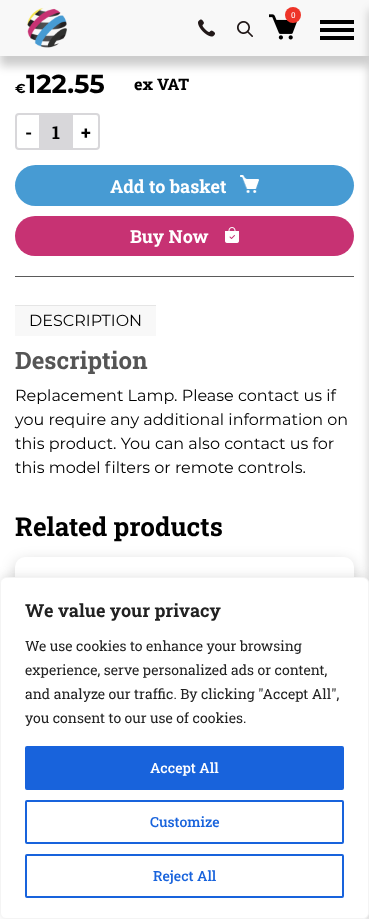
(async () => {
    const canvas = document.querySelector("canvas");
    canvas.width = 369;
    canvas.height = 919;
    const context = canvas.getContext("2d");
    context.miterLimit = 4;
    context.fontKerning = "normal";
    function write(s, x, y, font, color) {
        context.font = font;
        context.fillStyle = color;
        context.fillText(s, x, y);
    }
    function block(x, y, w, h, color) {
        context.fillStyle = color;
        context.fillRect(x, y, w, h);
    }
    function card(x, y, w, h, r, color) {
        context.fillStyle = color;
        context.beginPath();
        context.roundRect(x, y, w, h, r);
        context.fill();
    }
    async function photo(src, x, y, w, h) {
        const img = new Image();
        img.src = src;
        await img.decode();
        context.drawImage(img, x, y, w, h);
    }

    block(0, 0, 369, 919, "rgb(255, 255, 255)");
    context.fillStyle = "rgba(0, 0, 0, 0.2)";
    context.filter = "blur(5px)";
    context.beginPath();
    context.rect(0, 10, 369, 56);
    context.fill();
    context.filter = "none";
    block(0, 0, 369, 56, "rgb(248, 248, 248)");
    await photo("media/1.png", 27, 8, 40, 40);
    await photo("media/2.png", 269, 14, 28, 26);
    context.fillStyle = "rgb(238, 52, 40)";
    context.beginPath();
    context.arc(293, 15, 8, 0, Math.PI * 2);
    context.fill();
    write("0", 291, 18, "8px Roboto Slab", "rgb(255, 255, 255)");
    block(320, 28, 34, 4, "rgb(0, 0, 0)");
    block(320, 20, 34, 4, "rgb(0, 0, 0)");
    block(320, 36, 34, 4, "rgb(0, 0, 0)");
    card(15, 165, 339, 41, 20.5, "rgb(71, 155, 211)");
    card(15, 216, 339, 40, 20, "rgb(199, 50, 115)");
    block(15, 276, 339, 1, "rgb(90, 90, 90)");
    context.fillStyle = "rgba(0, 0, 0, 0.2)";
    context.filter = "blur(7.5px)";
    context.beginPath();
    context.roundRect(15, 562, 339, 335, 10);
    context.fill();
    context.filter = "none";
    card(15, 557, 339, 335, 10, "rgb(255, 255, 255)");
    context.fillStyle = "rgba(0, 0, 0, 0.2)";
    context.filter = "blur(5px)";
    context.beginPath();
    context.rect(369, 10, 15, 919);
    context.fill();
    context.filter = "none";
    await photo("media/3.png", 198, 19, 17, 18);
    await photo("media/4.png", 237, 21, 16, 16);
    write("€", 15, 93, "bold 13px Montserrat", "rgb(0, 0, 0)");
    write("122.55", 26, 93, "bold 26px Montserrat", "rgb(0, 0, 0)");
    write("ex VAT", 134, 90, "800 16px Roboto Slab", "rgb(0, 0, 0)");
    context.beginPath();
    context.roundRect(16, 114, 24, 35, [3, 0, 0, 3]);
    context.strokeStyle = "rgb(216, 215, 218)";
    context.lineWidth = 2;
    context.stroke();
    write("-", 25, 139, "bold 18px Roboto Slab", "rgb(0, 0, 0)");
    block(41, 113, 30, 37, "rgb(216, 215, 218)");
    write("1", 52, 139, "bold 18px Roboto Slab", "rgb(0, 0, 0)");
    context.beginPath();
    context.roundRect(72, 114, 27, 35, [0, 3, 3, 0]);
    context.stroke();
    write("+", 81, 139, "bold 18px Roboto Slab", "rgb(0, 0, 0)");
    write("Add to basket", 110, 193, "bold 18px Roboto Slab", "rgb(255, 255, 255)");
    await photo("media/5.png", 240, 175, 19, 18);
    write("Buy Now", 130, 243, "bold 18px Roboto Slab", "rgb(255, 255, 255)");
    await photo("media/6.png", 225, 227, 14, 16);
    context.fillStyle = "rgba(0, 0, 0, 0.1)";
    context.filter = "blur(0.5px)";
    context.beginPath();
    context.rect(15, 305, 141, 30);
    context.fill();
    context.filter = "none";
    block(15, 306, 141, 30, "rgb(248, 248, 248)");
    write("DESCRIPTION", 29, 326, "16px Montserrat", "rgb(0, 0, 0)");
    write("Description", 15, 369, "bold 24px Roboto Slab", "rgb(85, 85, 85)");
    write("Replacement Lamp. Please contact us if", 15, 401, "16px Montserrat", "rgb(0, 0, 0)");
    write("you require any additional information on", 15, 425, "16px Montserrat", "rgb(0, 0, 0)");
    write("this product. You can also contact us for", 15, 449, "16px Montserrat", "rgb(0, 0, 0)");
    write("this model filters or remote controls.", 15, 473, "16px Montserrat", "rgb(0, 0, 0)");
    write("Related products", 15, 536, "bold 26px Roboto Slab", "rgb(0, 0, 0)");
    context.fillStyle = "rgba(172, 171, 171, 0.3)";
    context.filter = "blur(5px)";
    context.beginPath();
    context.roundRect(0, 576, 369, 342, 6);
    context.fill();
    context.filter = "none";
    context.fillStyle = "rgb(255, 255, 255)";
    context.beginPath();
    context.roundRect(0.5, 577.5, 368, 341, 5.5);
    context.fill();
    context.strokeStyle = "rgb(244, 244, 244)";
    context.lineWidth = 1;
    context.stroke();
    write("We value your privacy", 25, 617, "bold 18px Roboto Slab", "rgb(33, 33, 33)");
    write("We use cookies to enhance your browsing", 25, 651, "14px Roboto Slab", "rgb(33, 33, 33)");
    write("experience, serve personalized ads or content,", 25, 675, "14px Roboto Slab", "rgb(33, 33, 33)");
    write("and analyze our traffic. By clicking \"Accept All\",", 25, 699, "14px Roboto Slab", "rgb(33, 33, 33)");
    write("you consent to our use of cookies.", 25, 723, "14px Roboto Slab", "rgb(33, 33, 33)");
    context.fillStyle = "rgb(24, 99, 220)";
    context.beginPath();
    context.roundRect(26, 747, 317, 42, 1);
    context.fill();
    context.strokeStyle = "rgb(24, 99, 220)";
    context.lineWidth = 2;
    context.stroke();
    write("Accept All", 150, 773, "500 14px Roboto Slab", "rgb(255, 255, 255)");
    context.beginPath();
    context.roundRect(26, 801, 317, 42, 1);
    context.stroke();
    write("Customize", 150, 827, "500 14px Roboto Slab", "rgb(24, 99, 220)");
    context.beginPath();
    context.roundRect(26, 855, 317, 42, 1);
    context.stroke();
    write("Reject All", 153, 881, "500 14px Roboto Slab", "rgb(24, 99, 220)");
})();
